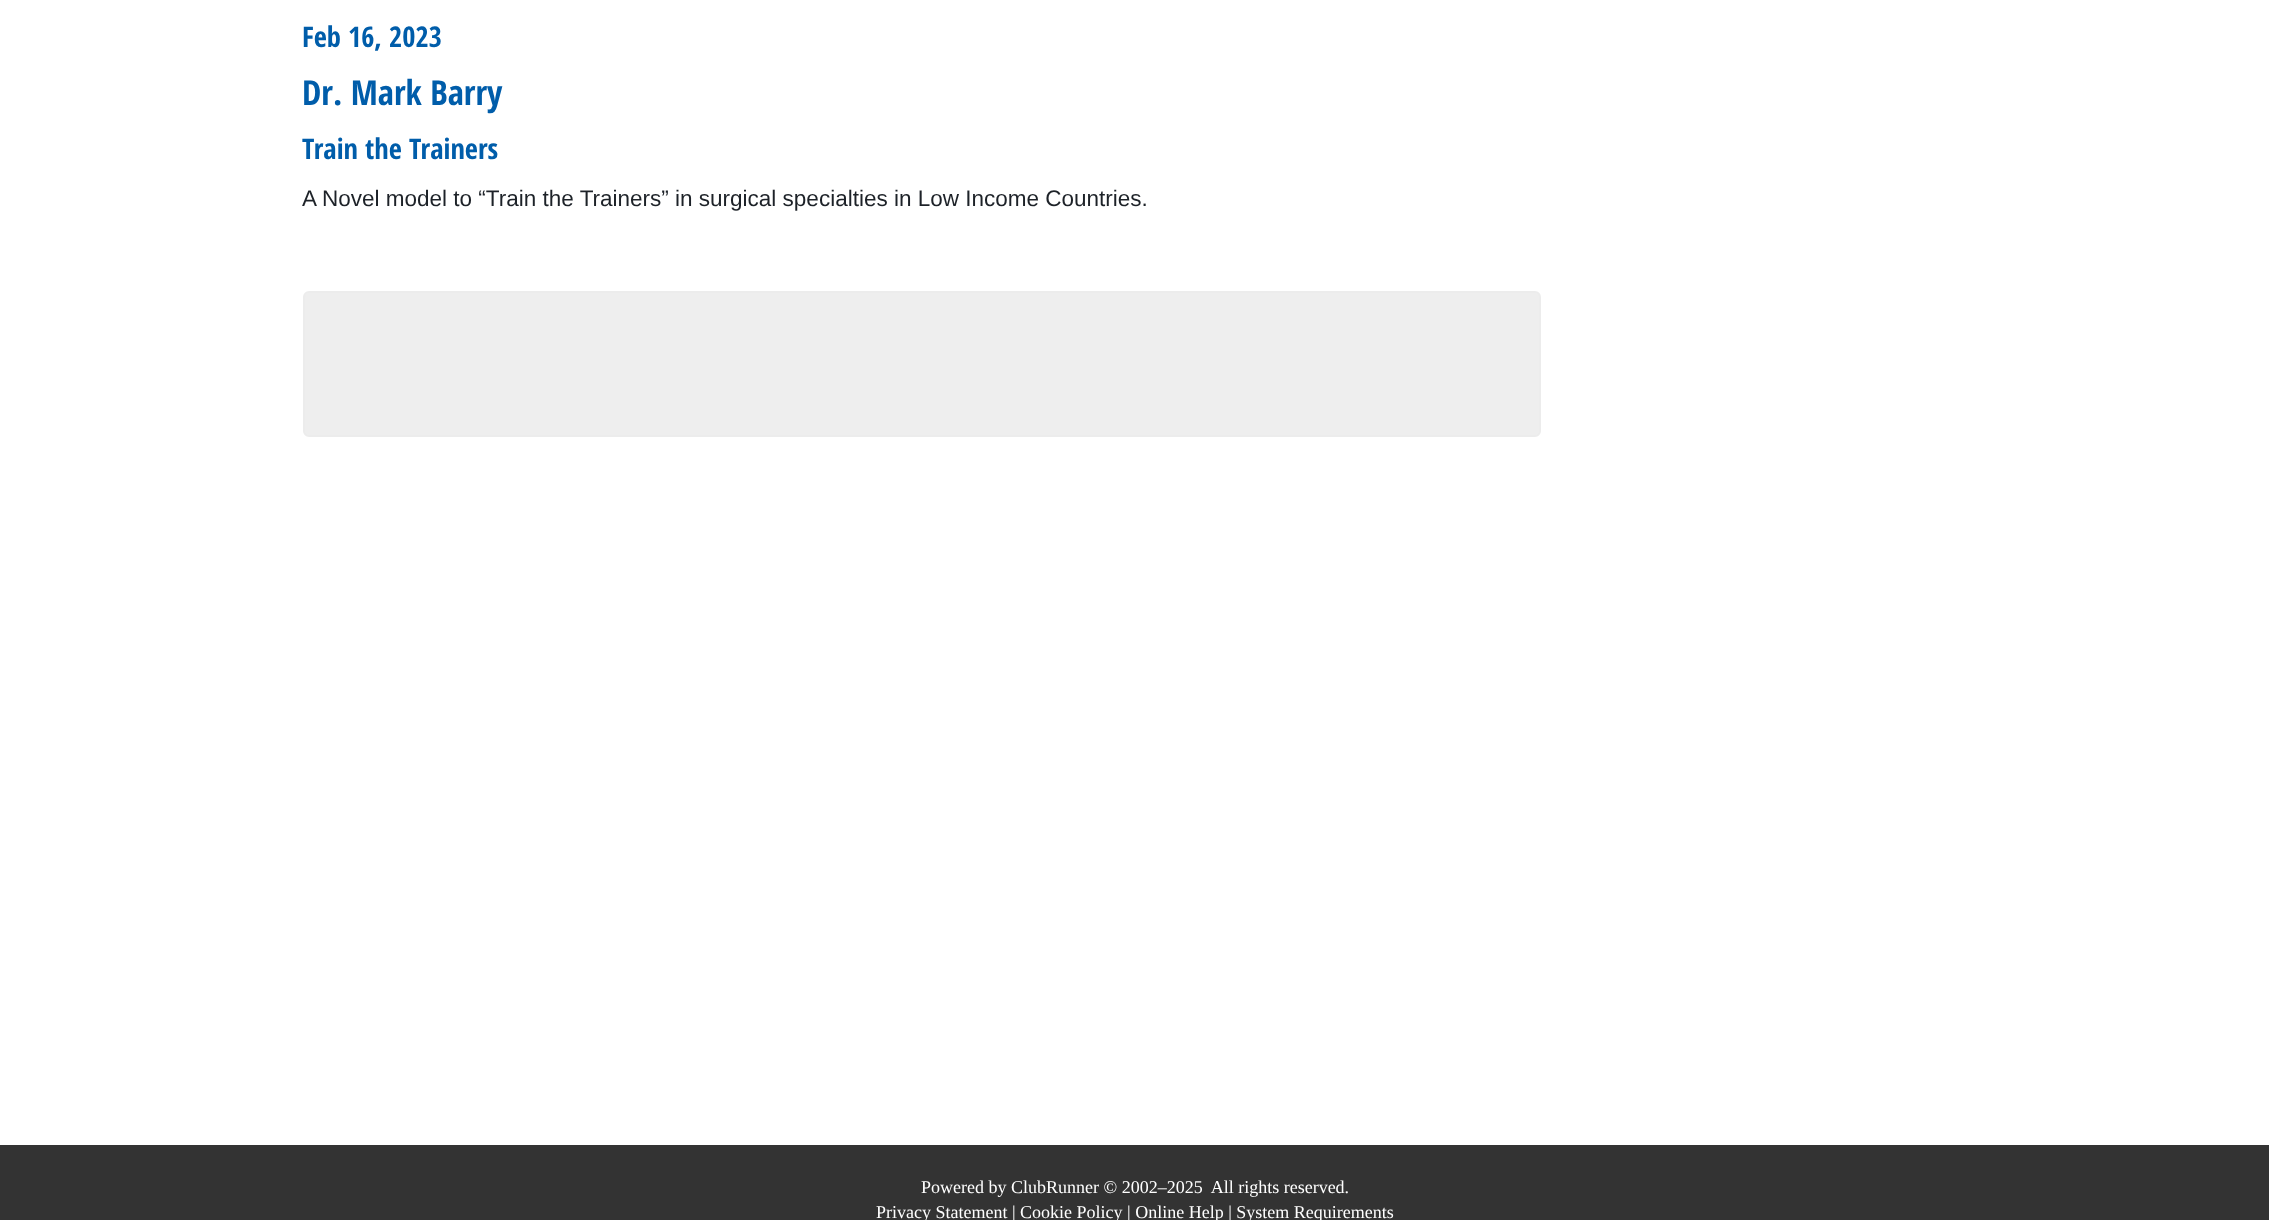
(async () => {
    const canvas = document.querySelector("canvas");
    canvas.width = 2269;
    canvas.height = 1220;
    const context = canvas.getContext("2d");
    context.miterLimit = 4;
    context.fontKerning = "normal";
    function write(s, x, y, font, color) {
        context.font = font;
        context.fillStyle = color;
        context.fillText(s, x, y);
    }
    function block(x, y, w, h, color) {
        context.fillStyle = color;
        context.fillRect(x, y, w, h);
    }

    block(0, 0, 2269, 1220, "rgb(255, 255, 255)");
    write("Feb 16, 2023", 302, 47, "bold 28.5px Open Sans Condensed", "rgb(0, 93, 170)");
    write("Dr. Mark Barry", 302, 105, "bold 34.5px Open Sans Condensed", "rgb(0, 93, 170)");
    write("Train the Trainers", 302, 159, "bold 28.5px Open Sans Condensed", "rgb(0, 93, 170)");
    write("A Novel model to “Train the Trainers” in surgical specialties in Low Income Countries.", 302, 206, "22.5px Liberation Sans", "rgb(29, 34, 40)");
    context.fillStyle = "rgb(238, 238, 238)";
    context.beginPath();
    context.roundRect(304, 292, 1236, 144, 5);
    context.fill();
    context.strokeStyle = "rgb(236, 236, 236)";
    context.lineWidth = 2;
    context.stroke();
    block(0, 1145, 2269, 75, "rgb(51, 51, 51)");
    write("Powered by ClubRunner © 2002–2025  All rights reserved.", 921, 1193, "18px Liberation Serif", "rgb(255, 255, 255)");
    write("Privacy Statement | Cookie Policy | Online Help | System Requirements", 876, 1218, "18px Liberation Serif", "rgb(255, 255, 255)");
})();
